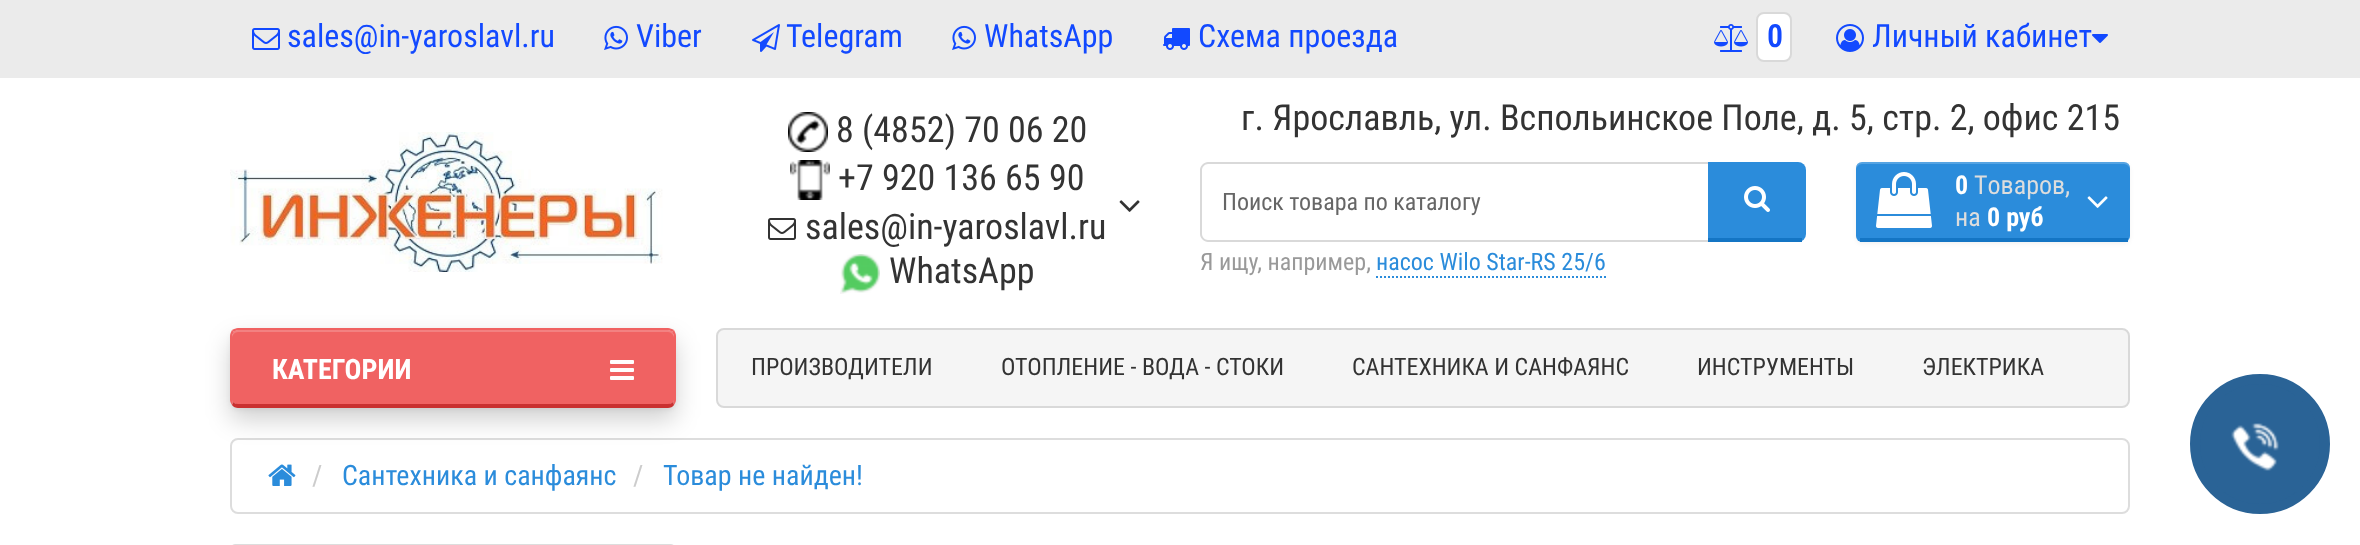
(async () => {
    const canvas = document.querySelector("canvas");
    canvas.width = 2360;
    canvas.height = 545;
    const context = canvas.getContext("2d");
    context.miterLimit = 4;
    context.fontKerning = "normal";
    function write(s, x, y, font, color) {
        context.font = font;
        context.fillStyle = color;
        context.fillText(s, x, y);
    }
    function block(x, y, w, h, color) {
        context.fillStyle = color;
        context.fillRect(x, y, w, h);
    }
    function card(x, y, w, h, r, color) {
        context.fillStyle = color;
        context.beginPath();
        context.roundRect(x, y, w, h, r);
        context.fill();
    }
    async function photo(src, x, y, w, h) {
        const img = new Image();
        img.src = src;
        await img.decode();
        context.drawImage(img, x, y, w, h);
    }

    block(0, 0, 2360, 545, "rgb(255, 255, 255)");
    block(0, 0, 2360, 78, "rgb(235, 235, 235)");
    await photo("media/1.png", 252, 28, 28, 22);
    write("sales@in-yaroslavl.ru", 287, 47, "32px Roboto Condensed", "rgb(18, 73, 255)");
    await photo("media/2.png", 604, 25, 24, 25);
    write("Viber", 636, 47, "32px Roboto Condensed", "rgb(18, 73, 255)");
    await photo("media/3.png", 752, 24, 28, 28);
    write("Telegram", 786, 47, "32px Roboto Condensed", "rgb(18, 73, 255)");
    await photo("media/2.png", 952, 25, 24, 25);
    write("WhatsApp", 984, 47, "32px Roboto Condensed", "rgb(18, 73, 255)");
    await photo("media/4.png", 1163, 28, 27, 22);
    write("Схема проезда", 1198, 47, "32px Roboto Condensed", "rgb(18, 73, 255)");
    await photo("media/5.png", 1714, 24, 34, 28);
    context.fillStyle = "rgb(255, 255, 255)";
    context.beginPath();
    context.roundRect(1757, 13, 34, 48, 7);
    context.fill();
    context.strokeStyle = "rgb(217, 217, 217)";
    context.lineWidth = 2;
    context.stroke();
    write("0", 1767, 47, "600 32px Roboto Condensed", "rgb(18, 73, 255)");
    await photo("media/6.png", 1836, 24, 28, 28);
    write("Личный кабинет", 1872, 47, "32px Roboto Condensed", "rgb(18, 73, 255)");
    await photo("media/7.png", 2092, 34, 16, 9);
    await photo("media/8.png", 230, 132, 433, 140);
    await photo("media/9.png", 788, 112, 40, 40);
    write("8 (4852) 70 06 20", 836, 142, "36px Roboto Condensed", "rgb(51, 51, 51)");
    await photo("media/10.png", 790, 160, 40, 40);
    write("+7 920 136 65 90", 838, 190, "36px Roboto Condensed", "rgb(51, 51, 51)");
    await photo("media/11.png", 1119, 200, 21, 12);
    await photo("media/12.png", 768, 218, 28, 22);
    write("sales@in-yaroslavl.ru", 805, 239, "36px Roboto Condensed", "rgb(51, 51, 51)");
    await photo("media/13.png", 840, 254, 40, 40);
    write("WhatsApp", 889, 283, "36px Roboto Condensed", "rgb(51, 51, 51)");
    write("г. Ярославль, ул. Вспольинское Поле, д. 5, стр. 2, офис 215", 1241, 130, "36px Roboto Condensed", "rgb(51, 51, 51)");
    context.fillStyle = "rgb(217, 217, 217)";
    context.beginPath();
    context.moveTo(1208, 162);
    context.lineTo(1708, 162);
    context.lineTo(1708, 242);
    context.lineTo(1208, 242);
    context.bezierCurveTo(1204, 242, 1200, 238, 1200, 234);
    context.lineTo(1200, 170);
    context.bezierCurveTo(1200, 166, 1204, 162, 1208, 162);
    context.closePath();
    context.moveTo(1208, 164);
    context.lineTo(1708, 164);
    context.lineTo(1708, 240);
    context.lineTo(1208, 240);
    context.bezierCurveTo(1205, 240, 1202, 237, 1202, 234);
    context.lineTo(1202, 170);
    context.bezierCurveTo(1202, 167, 1205, 164, 1208, 164);
    context.closePath();
    context.fill("evenodd");
    write("Поиск товара по каталогу", 1222, 210, "24px Roboto Condensed", "rgb(102, 102, 102)");
    context.fillStyle = "rgb(43, 140, 219)";
    context.beginPath();
    context.roundRect(1708, 162, 98, 80, [0, 8, 8, 0]);
    context.fill();
    block(1708, 238, 94, 4, "rgb(20, 117, 196)");
    await photo("media/14.png", 1744, 186, 26, 26);
    write("Я ищу, например,", 1200, 270, "24px Roboto Condensed", "rgb(153, 153, 153)");
    write("насос Wilo Star-RS 25/6", 1376, 270, "24px Roboto Condensed", "rgb(43, 140, 219)");
    context.beginPath();
    context.moveTo(1376, 277);
    context.lineTo(1606, 277);
    context.strokeStyle = "rgb(43, 140, 219)";
    context.setLineDash([2, 2]);
    context.stroke();
    context.fillStyle = "rgba(0, 0, 0, 0.05)";
    context.filter = "blur(2px)";
    context.beginPath();
    context.roundRect(1856, 164, 274, 80, 6);
    context.fill();
    context.filter = "none";
    card(1856, 162, 274, 80, 6, "rgb(43, 140, 219)");
    context.fillStyle = "rgba(255, 255, 255, 0.2)";
    context.beginPath();
    context.moveTo(1862, 164);
    context.lineTo(2124, 164);
    context.bezierCurveTo(2127, 164, 2130, 167, 2130, 170);
    context.bezierCurveTo(2130, 167, 2129, 163, 2125, 162);
    context.lineTo(1861, 162);
    context.bezierCurveTo(1857, 163, 1856, 167, 1856, 170);
    context.bezierCurveTo(1856, 167, 1859, 164, 1862, 164);
    context.closePath();
    context.fill();
    block(1860, 238, 268, 4, "rgb(20, 117, 196)");
    await photo("media/15.png", 1876, 172, 56, 56);
    write("0", 1955, 194, "bold 26px Roboto Condensed", "rgb(255, 255, 255)");
    write("Tоваров,", 1974, 194, "26px Roboto Condensed", "rgb(221, 221, 221)");
    write("на", 1955, 226, "26px Roboto Condensed", "rgb(221, 221, 221)");
    write("0 руб", 1987, 226, "bold 26px Roboto Condensed", "rgb(255, 255, 255)");
    await photo("media/16.png", 2087, 196, 21, 12);
    context.beginPath();
    context.roundRect(231, 439, 1898, 74, 7);
    context.strokeStyle = "rgb(221, 221, 221)";
    context.setLineDash([]);
    context.stroke();
    context.fillStyle = "rgba(0, 0, 0, 0.18)";
    context.filter = "blur(12px)";
    context.beginPath();
    context.roundRect(230, 340, 446, 80, 8);
    context.fill();
    context.filter = "none";
    context.fillStyle = "rgba(0, 0, 0, 0.05)";
    context.filter = "blur(2px)";
    context.beginPath();
    context.roundRect(230, 330, 446, 80, 8);
    context.fill();
    context.filter = "none";
    context.fillStyle = "rgb(240, 98, 98)";
    context.beginPath();
    context.moveTo(238, 330);
    context.lineTo(668, 330);
    context.bezierCurveTo(671, 330, 674, 333, 674, 336);
    context.lineTo(674, 400);
    context.bezierCurveTo(674, 402, 671, 404, 668, 404);
    context.lineTo(238, 404);
    context.bezierCurveTo(235, 404, 232, 402, 232, 400);
    context.lineTo(232, 336);
    context.bezierCurveTo(232, 333, 235, 330, 238, 330);
    context.closePath();
    context.fill();
    context.fillStyle = "rgba(255, 255, 255, 0.2)";
    context.beginPath();
    context.moveTo(238, 332);
    context.lineTo(668, 332);
    context.bezierCurveTo(671, 332, 674, 335, 674, 338);
    context.lineTo(674, 336);
    context.bezierCurveTo(674, 333, 671, 330, 668, 330);
    context.lineTo(238, 330);
    context.bezierCurveTo(235, 330, 232, 333, 232, 336);
    context.lineTo(232, 338);
    context.bezierCurveTo(232, 335, 235, 332, 238, 332);
    context.closePath();
    context.fill();
    context.fillStyle = "rgb(240, 98, 98)";
    context.beginPath();
    context.moveTo(238, 328);
    context.bezierCurveTo(236, 328, 234, 329, 232, 330);
    context.lineTo(234, 332);
    context.bezierCurveTo(235, 331, 236, 330, 238, 330);
    context.lineTo(668, 330);
    context.bezierCurveTo(670, 330, 671, 331, 672, 332);
    context.lineTo(674, 330);
    context.bezierCurveTo(672, 329, 670, 328, 668, 328);
    context.closePath();
    context.fill();
    context.beginPath();
    context.moveTo(676, 400);
    context.lineTo(676, 336);
    context.bezierCurveTo(676, 334, 675, 332, 674, 330);
    context.lineTo(672, 332);
    context.lineTo(674, 335);
    context.lineTo(674, 400);
    context.lineTo(673, 402);
    context.lineTo(674, 405);
    context.bezierCurveTo(675, 403, 676, 402, 676, 400);
    context.closePath();
    context.fill();
    context.fillStyle = "rgb(202, 48, 48)";
    context.beginPath();
    context.moveTo(238, 408);
    context.lineTo(668, 408);
    context.bezierCurveTo(670, 408, 673, 407, 674, 405);
    context.lineTo(673, 402);
    context.bezierCurveTo(672, 403, 670, 404, 668, 404);
    context.lineTo(238, 404);
    context.bezierCurveTo(236, 404, 234, 403, 233, 402);
    context.lineTo(232, 405);
    context.bezierCurveTo(233, 407, 236, 408, 238, 408);
    context.closePath();
    context.fill();
    context.fillStyle = "rgb(240, 98, 98)";
    context.beginPath();
    context.moveTo(230, 336);
    context.lineTo(230, 400);
    context.bezierCurveTo(230, 402, 231, 403, 232, 405);
    context.lineTo(233, 402);
    context.lineTo(232, 400);
    context.lineTo(232, 335);
    context.lineTo(234, 332);
    context.lineTo(232, 330);
    context.bezierCurveTo(231, 332, 230, 334, 230, 336);
    context.closePath();
    context.fill();
    write("КАТЕГОРИИ", 272, 379, "bold 28px Roboto Condensed", "rgb(255, 255, 255)");
    await photo("media/17.png", 610, 360, 24, 20);
    context.fillStyle = "rgb(245, 245, 245)";
    context.beginPath();
    context.roundRect(717, 329, 1412, 78, 7);
    context.fill();
    context.strokeStyle = "rgb(217, 217, 217)";
    context.stroke();
    write("ПРОИЗВОДИТЕЛИ", 751, 375, "24px Roboto Condensed", "rgb(51, 51, 51)");
    write("ОТОПЛЕНИЕ - ВОДА - СТОКИ", 1001, 375, "24px Roboto Condensed", "rgb(51, 51, 51)");
    write("САНТЕХНИКА И САНФАЯНС", 1352, 375, "24px Roboto Condensed", "rgb(51, 51, 51)");
    write("ИНСТРУМЕНТЫ", 1697, 375, "24px Roboto Condensed", "rgb(51, 51, 51)");
    write("ЭЛЕКТРИКА", 1922, 375, "24px Roboto Condensed", "rgb(51, 51, 51)");
    await photo("media/18.png", 268, 464, 28, 22);
    write("/", 312, 485, "28px Roboto Condensed", "rgb(204, 204, 204)");
    write("Сантехника и санфаянс", 342, 485, "28px Roboto Condensed", "rgb(43, 140, 219)");
    write("/", 633, 485, "28px Roboto Condensed", "rgb(204, 204, 204)");
    write("Товар не найден!", 663, 485, "28px Roboto Condensed", "rgb(43, 140, 219)");
    context.beginPath();
    context.roundRect(231, 545, 444, 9, 7);
    context.strokeStyle = "rgb(221, 221, 221)";
    context.stroke();
    context.fillStyle = "rgb(42, 99, 150)";
    context.beginPath();
    context.arc(2260, 444, 65, 0, Math.PI * 2);
    context.fill();
    context.strokeStyle = "rgb(42, 99, 150)";
    context.lineWidth = 10;
    context.stroke();
    await photo("media/19.png", 2231, 423, 48, 48);
})();
